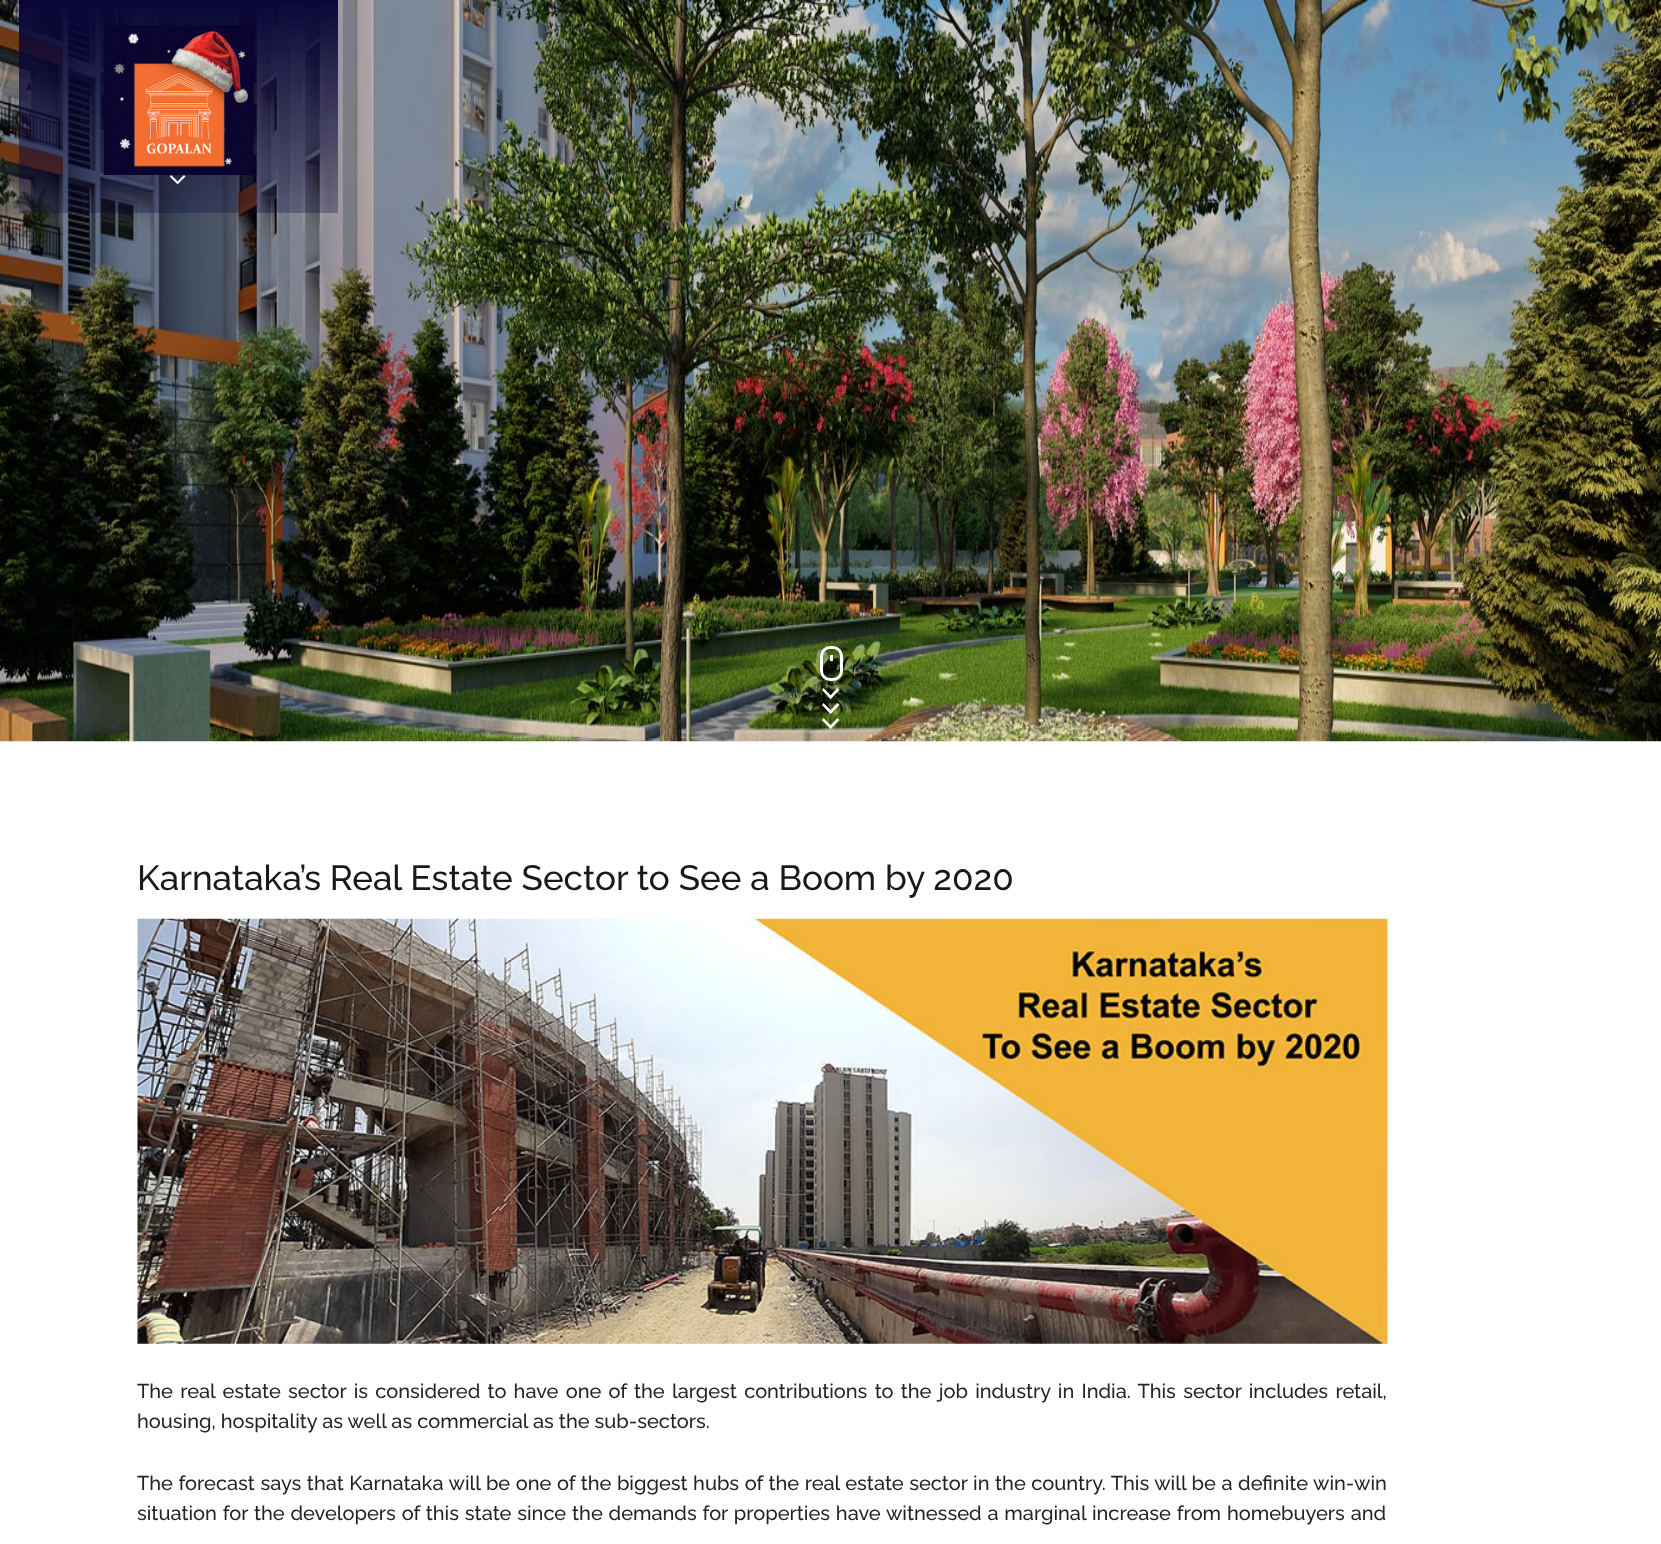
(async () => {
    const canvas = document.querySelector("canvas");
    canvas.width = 1661;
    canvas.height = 1544;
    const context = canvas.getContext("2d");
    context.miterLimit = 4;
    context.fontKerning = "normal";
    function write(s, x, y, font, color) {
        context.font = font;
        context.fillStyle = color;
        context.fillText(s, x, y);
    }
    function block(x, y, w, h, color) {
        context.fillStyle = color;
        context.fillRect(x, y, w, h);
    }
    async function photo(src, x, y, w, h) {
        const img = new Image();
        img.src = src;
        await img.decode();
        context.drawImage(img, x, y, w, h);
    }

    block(0, 0, 1661, 1544, "rgb(255, 255, 255)");
    await photo("media/3.png", 0, 0, 1661, 742);
    await photo("media/1.png", 103, 25, 151, 150);
    await photo("media/2.png", 170, 175, 16, 10);
    context.beginPath();
    context.roundRect(821.5, 647.5, 20, 32, 8.5);
    context.strokeStyle = "rgb(255, 255, 255)";
    context.lineWidth = 3;
    context.stroke();
    block(830, 655, 3, 6, "rgb(255, 255, 255)");
    context.beginPath();
    context.moveTo(837.5, 688);
    context.lineTo(839.5, 690);
    context.lineTo(830.5, 699);
    context.lineTo(829, 697);
    context.closePath();
    context.fill();
    context.beginPath();
    context.moveTo(823.5, 688);
    context.lineTo(832.5, 697);
    context.lineTo(830.5, 699);
    context.lineTo(822, 690);
    context.closePath();
    context.moveTo(837.5, 703);
    context.lineTo(839.5, 705);
    context.lineTo(830.5, 714);
    context.lineTo(829, 712);
    context.closePath();
    context.fill();
    context.beginPath();
    context.moveTo(823.5, 703);
    context.lineTo(832.5, 712);
    context.lineTo(830.5, 714);
    context.lineTo(822, 705);
    context.closePath();
    context.moveTo(837.5, 718);
    context.lineTo(839.5, 720);
    context.lineTo(830.5, 729);
    context.lineTo(829, 727);
    context.closePath();
    context.fill();
    context.beginPath();
    context.moveTo(823.5, 718);
    context.lineTo(832.5, 727);
    context.lineTo(830.5, 729);
    context.lineTo(822, 720);
    context.closePath();
    context.fill();
    write("Karnataka’s Real Estate Sector to See a Boom by 2020", 137, 890, "500 35px Raleway", "rgb(25, 25, 25)");
    await photo("media/4.png", 137, 918, 1251, 426);
    context.wordSpacing = "2.2px";
    write("The real estate sector is considered to have one of the largest contributions to the job industry in India. This sector includes retail,", 137, 1398, "500 20px Raleway", "rgb(33, 37, 41)");
    context.wordSpacing = "0px";
    write("housing, hospitality as well as commercial as the sub-sectors.", 137, 1428, "500 20px Raleway", "rgb(33, 37, 41)");
    context.wordSpacing = "0.5px";
    write("The forecast says that Karnataka will be one of the biggest hubs of the real estate sector in the country. This will be a definite win-win", 137, 1490, "500 20px Raleway", "rgb(33, 37, 41)");
    context.wordSpacing = "0.8px";
    write("situation for the developers of this state since the demands for properties have witnessed a marginal increase from homebuyers and", 137, 1520, "500 20px Raleway", "rgb(33, 37, 41)");
})();
